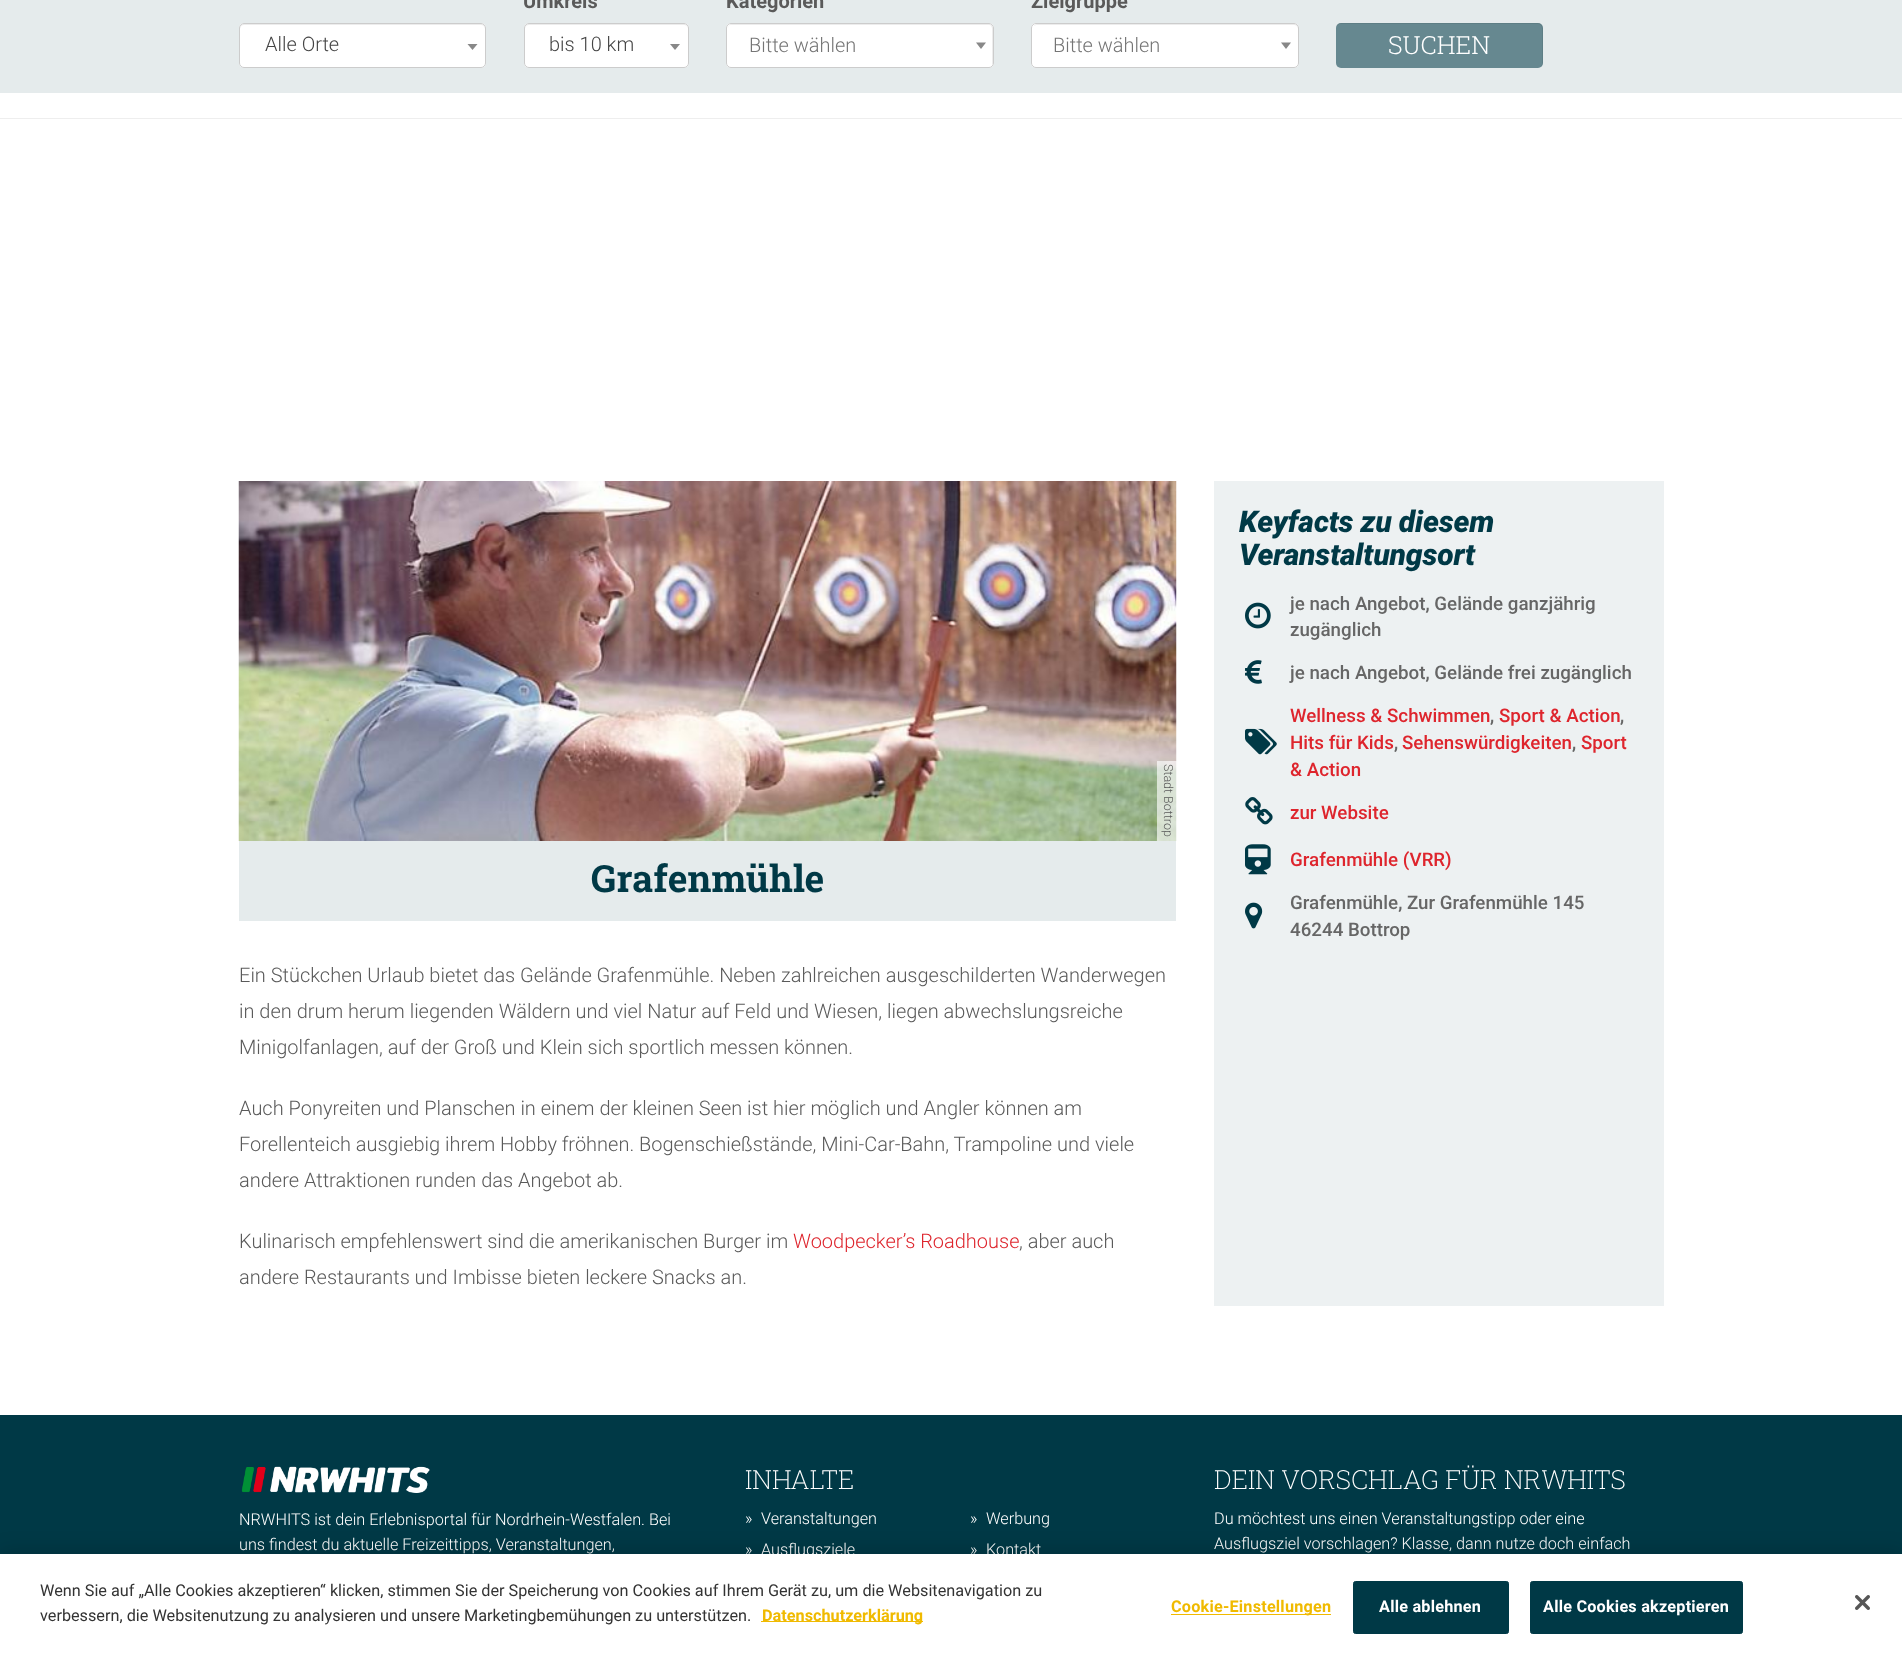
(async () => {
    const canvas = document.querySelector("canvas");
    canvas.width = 1902;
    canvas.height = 1656;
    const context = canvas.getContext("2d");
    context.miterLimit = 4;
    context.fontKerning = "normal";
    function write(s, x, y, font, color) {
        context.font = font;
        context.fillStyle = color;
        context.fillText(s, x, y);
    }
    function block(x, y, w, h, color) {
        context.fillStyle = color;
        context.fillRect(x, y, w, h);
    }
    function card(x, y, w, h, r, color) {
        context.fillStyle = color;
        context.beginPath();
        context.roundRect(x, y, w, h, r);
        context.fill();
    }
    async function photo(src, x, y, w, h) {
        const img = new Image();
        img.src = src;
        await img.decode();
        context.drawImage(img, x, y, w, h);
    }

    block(0, 0, 1902, 1656, "rgb(255, 255, 255)");
    block(0, 118, 1902, 1, "rgb(238, 238, 238)");
    block(0, 0, 1902, 93, "rgb(229, 235, 236)");
    card(239, 23, 247, 45, 5, "rgb(255, 255, 255)");
    context.fillStyle = "rgb(236, 236, 236)";
    context.beginPath();
    context.moveTo(244, 25);
    context.lineTo(481, 25);
    context.bezierCurveTo(483, 25, 485, 27, 485, 29);
    context.lineTo(485, 28);
    context.bezierCurveTo(485, 26, 483, 24, 481, 24);
    context.lineTo(244, 24);
    context.bezierCurveTo(242, 24, 240, 26, 240, 28);
    context.lineTo(240, 29);
    context.bezierCurveTo(240, 27, 242, 25, 244, 25);
    context.closePath();
    context.fill();
    context.beginPath();
    context.roundRect(239.5, 23.5, 246, 44, 4.5);
    context.strokeStyle = "rgb(204, 204, 204)";
    context.stroke();
    write("Alle Orte", 265, 51, "300 20px Roboto", "rgb(68, 68, 68)");
    context.fillStyle = "rgb(136, 136, 136)";
    context.beginPath();
    context.moveTo(467.5, 44);
    context.lineTo(477.5, 44);
    context.lineTo(472.5, 50);
    context.closePath();
    context.fill();
    write("Umkreis", 523, 8, "bold 20px Roboto", "rgb(90, 90, 90)");
    card(524, 23, 165, 45, 5, "rgb(255, 255, 255)");
    context.fillStyle = "rgb(236, 236, 236)";
    context.beginPath();
    context.moveTo(529, 25);
    context.lineTo(684, 25);
    context.bezierCurveTo(686, 25, 688, 27, 688, 29);
    context.bezierCurveTo(688, 27, 687, 25, 685, 24);
    context.lineTo(528, 24);
    context.bezierCurveTo(526, 25, 525, 27, 525, 29);
    context.bezierCurveTo(525, 27, 527, 25, 529, 25);
    context.closePath();
    context.fill();
    context.beginPath();
    context.roundRect(524.5, 23.5, 164, 44, 4.5);
    context.stroke();
    write("bis 10 km", 549, 51, "300 20px Roboto", "rgb(68, 68, 68)");
    context.fillStyle = "rgb(136, 136, 136)";
    context.beginPath();
    context.moveTo(670, 44);
    context.lineTo(680, 44);
    context.lineTo(675, 50);
    context.closePath();
    context.fill();
    write("Kategorien", 726, 8, "bold 20px Roboto", "rgb(90, 90, 90)");
    card(726, 23, 268, 45, 5, "rgb(255, 255, 255)");
    context.fillStyle = "rgb(236, 236, 236)";
    context.beginPath();
    context.moveTo(731, 25);
    context.lineTo(989, 25);
    context.bezierCurveTo(991, 25, 992, 27, 992, 29);
    context.lineTo(992, 65);
    context.bezierCurveTo(993, 64, 993, 63, 993, 62);
    context.lineTo(993, 28);
    context.bezierCurveTo(993, 26, 991, 24, 989, 24);
    context.lineTo(732, 24);
    context.bezierCurveTo(730, 24, 728, 26, 728, 28);
    context.lineTo(728, 29);
    context.bezierCurveTo(728, 27, 729, 25, 731, 25);
    context.closePath();
    context.fill();
    context.beginPath();
    context.roundRect(726.5, 23.5, 267, 44, 4.5);
    context.stroke();
    write("Bitte wählen", 749, 52, "300 20px Roboto", "rgb(117, 117, 117)");
    context.fillStyle = "rgb(136, 136, 136)";
    context.beginPath();
    context.moveTo(976, 42.5);
    context.lineTo(986, 42.5);
    context.lineTo(981, 49);
    context.closePath();
    context.fill();
    write("Zielgruppe", 1031, 8, "bold 20px Roboto", "rgb(90, 90, 90)");
    card(1031, 23, 268, 45, 5, "rgb(255, 255, 255)");
    context.fillStyle = "rgb(236, 236, 236)";
    context.beginPath();
    context.moveTo(1036, 25);
    context.lineTo(1294, 25);
    context.bezierCurveTo(1296, 25, 1298, 27, 1298, 29);
    context.lineTo(1298, 28);
    context.bezierCurveTo(1298, 26, 1296, 24, 1294, 24);
    context.lineTo(1037, 24);
    context.bezierCurveTo(1036, 24, 1034, 25, 1034, 26);
    context.closePath();
    context.fill();
    context.beginPath();
    context.roundRect(1031.5, 23.5, 267, 44, 4.5);
    context.stroke();
    write("Bitte wählen", 1053, 52, "300 20px Roboto", "rgb(117, 117, 117)");
    context.fillStyle = "rgb(136, 136, 136)";
    context.beginPath();
    context.moveTo(1281, 42.5);
    context.lineTo(1291, 42.5);
    context.lineTo(1286, 49);
    context.closePath();
    context.fill();
    card(1336, 23, 207, 45, 5, "rgb(102, 136, 144)");
    context.fillStyle = "rgba(0, 0, 0, 0.07)";
    context.beginPath();
    context.moveTo(1341, 24);
    context.lineTo(1538, 24);
    context.bezierCurveTo(1540, 24, 1542, 26, 1542, 29);
    context.lineTo(1542, 64);
    context.lineTo(1541, 67);
    context.bezierCurveTo(1542, 66, 1543, 64, 1543, 63);
    context.lineTo(1543, 28);
    context.bezierCurveTo(1543, 25, 1541, 23, 1538, 23);
    context.lineTo(1341, 23);
    context.bezierCurveTo(1338, 23, 1336, 25, 1336, 28);
    context.lineTo(1336, 29);
    context.bezierCurveTo(1336, 26, 1338, 24, 1341, 24);
    context.closePath();
    context.fill();
    write("SUCHEN", 1388, 54, "300 25px Roboto Slab", "rgb(255, 255, 255)");
    await photo("media/1.png", 238, 481, 939, 360);
    block(1157, 761, 20, 80, "rgba(255, 255, 255, 0.65)");
    context.font = "300 12.5px Roboto";
    context.fillStyle = "rgb(90, 90, 90)";
    context.save();
    context.translate(1164, 764);
    context.rotate(90 * Math.PI / 180);
    context.fillText("Stadt Bottrop", 0, 0);
    context.restore();
    block(239, 841, 937, 80, "rgb(229, 235, 236)");
    write("Grafenmühle", 591, 892, "bold 37.5px Roboto Slab", "rgb(0, 57, 70)");
    write("Ein Stückchen Urlaub bietet das Gelände Grafenmühle. Neben zahlreichen ausgeschilderten Wanderwegen", 239, 982, "300 20px Roboto", "rgb(90, 90, 90)");
    write("in den drum herum liegenden Wäldern und viel Natur auf Feld und Wiesen, liegen abwechslungsreiche", 239, 1018, "300 20px Roboto", "rgb(90, 90, 90)");
    write("Minigolfanlagen, auf der Groß und Klein sich sportlich messen können.", 239, 1054, "300 20px Roboto", "rgb(90, 90, 90)");
    write("Auch Ponyreiten und Planschen in einem der kleinen Seen ist hier möglich und Angler können am", 239, 1115, "300 20px Roboto", "rgb(90, 90, 90)");
    write("Forellenteich ausgiebig ihrem Hobby fröhnen. Bogenschießstände, Mini-Car-Bahn, Trampoline und viele", 239, 1151, "300 20px Roboto", "rgb(90, 90, 90)");
    write("andere Attraktionen runden das Angebot ab.", 239, 1187, "300 20px Roboto", "rgb(90, 90, 90)");
    write("Kulinarisch empfehlenswert sind die amerikanischen Burger im", 239, 1248, "300 20px Roboto", "rgb(90, 90, 90)");
    write("Woodpecker’s Roadhouse", 793, 1248, "300 20px Roboto", "rgb(222, 37, 45)");
    write(", aber auch", 1019, 1248, "300 20px Roboto", "rgb(90, 90, 90)");
    write("andere Restaurants und Imbisse bieten leckere Snacks an.", 239, 1284, "300 20px Roboto", "rgb(90, 90, 90)");
    block(1214, 481, 450, 825, "rgb(237, 241, 242)");
    context.letterSpacing = "-0.25px";
    write("Keyfacts zu diesem", 1239, 532, "italic 900 30px Roboto", "rgb(0, 57, 70)");
    write("Veranstaltungsort", 1239, 565, "italic 900 30px Roboto", "rgb(0, 57, 70)");
    await photo("media/2.png", 1245, 602, 26, 27);
    context.letterSpacing = "0px";
    write("je nach Angebot, Gelände ganzjährig", 1290, 610, "500 18.75px Roboto", "rgb(102, 102, 102)");
    write("zugänglich", 1290, 636, "500 18.75px Roboto", "rgb(102, 102, 102)");
    await photo("media/3.png", 1245, 660, 17, 24);
    write("je nach Angebot, Gelände frei zugänglich", 1290, 679, "500 18.75px Roboto", "rgb(102, 102, 102)");
    await photo("media/4.png", 1245, 728, 32, 27);
    write("Wellness & Schwimmen", 1290, 722, "500 18.75px Roboto", "rgb(222, 37, 45)");
    write(",", 1490, 722, "500 18.75px Roboto", "rgb(102, 102, 102)");
    write("Sport & Action", 1499, 722, "500 18.75px Roboto", "rgb(222, 37, 45)");
    write(",", 1620, 722, "500 18.75px Roboto", "rgb(102, 102, 102)");
    write("Hits für Kids", 1290, 749, "500 18.75px Roboto", "rgb(222, 37, 45)");
    write(",", 1394, 749, "500 18.75px Roboto", "rgb(102, 102, 102)");
    write("Sehenswürdigkeiten", 1402, 749, "500 18.75px Roboto", "rgb(222, 37, 45)");
    write(",", 1572, 749, "500 18.75px Roboto", "rgb(102, 102, 102)");
    write("Sport", 1581, 749, "500 18.75px Roboto", "rgb(222, 37, 45)");
    write("& Action", 1290, 776, "500 18.75px Roboto", "rgb(222, 37, 45)");
    await photo("media/5.png", 1245, 797, 28, 28);
    write("zur Website", 1290, 819, "500 18.75px Roboto", "rgb(222, 37, 45)");
    await photo("media/6.png", 1245, 844, 26, 31);
    write("Grafenmühle (VRR)", 1290, 866, "500 18.75px Roboto", "rgb(222, 37, 45)");
    await photo("media/7.png", 1245, 902, 18, 27);
    write("Grafenmühle, Zur Grafenmühle 145", 1290, 909, "500 18.75px Roboto", "rgb(102, 102, 102)");
    write("46244 Bottrop", 1290, 936, "500 18.75px Roboto", "rgb(102, 102, 102)");
    block(0, 1415, 1902, 139, "rgb(0, 57, 70)");
    await photo("media/8.png", 241, 1466, 189, 27);
    write("NRWHITS ist dein Erlebnisportal für Nordrhein-Westfalen. Bei", 239, 1525, "300 16.25px Roboto", "rgb(255, 255, 255)");
    write("uns findest du aktuelle Freizeittipps, Veranstaltungen,", 239, 1550, "300 16.25px Roboto", "rgb(255, 255, 255)");
    write("INHALTE", 745, 1489, "200 26.25px Roboto Slab", "rgb(255, 255, 255)");
    write("»", 745, 1524, "300 16.25px Roboto", "rgb(255, 255, 255)");
    write("Veranstaltungen", 761, 1524, "300 16.25px Roboto", "rgb(255, 255, 255)");
    write("»", 745, 1555, "300 16.25px Roboto", "rgb(255, 255, 255)");
    write("Ausflugsziele", 761, 1555, "300 16.25px Roboto", "rgb(255, 255, 255)");
    write("»", 970, 1524, "300 16.25px Roboto", "rgb(255, 255, 255)");
    write("Werbung", 986, 1524, "300 16.25px Roboto", "rgb(255, 255, 255)");
    write("»", 970, 1555, "300 16.25px Roboto", "rgb(255, 255, 255)");
    write("Kontakt", 986, 1555, "300 16.25px Roboto", "rgb(255, 255, 255)");
    write("DEIN VORSCHLAG FÜR NRWHITS", 1214, 1489, "200 26.25px Roboto Slab", "rgb(255, 255, 255)");
    write("Du möchtest uns einen Veranstaltungstipp oder eine", 1214, 1524, "300 16.25px Roboto", "rgb(255, 255, 255)");
    write("Ausflugsziel vorschlagen? Klasse, dann nutze doch einfach", 1214, 1549, "300 16.25px Roboto", "rgb(255, 255, 255)");
    context.fillStyle = "rgba(0, 0, 0, 0.2)";
    context.filter = "blur(11px)";
    context.beginPath();
    context.rect(0, 1554, 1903, 102);
    context.fill();
    context.filter = "none";
    block(0, 1554, 1902, 102, "rgb(255, 255, 255)");
    write("Wenn Sie auf „Alle Cookies akzeptieren“ klicken, stimmen Sie der Speicherung von Cookies auf Ihrem Gerät zu, um die Websitenavigation zu", 40, 1596, "16.25px Roboto", "rgb(51, 51, 51)");
    write("verbessern, die Websitenutzung zu analysieren und unsere Marketingbemühungen zu unterstützen.", 40, 1621, "16.25px Roboto", "rgb(51, 51, 51)");
    block(761, 1621, 162, 1, "rgb(240, 186, 0)");
    write("Datenschutzerklärung", 762, 1621, "bold 16.25px Roboto", "rgb(240, 186, 0)");
    block(1171, 1614, 160, 1, "rgb(240, 186, 0)");
    context.letterSpacing = "0.2px";
    write("Cookie-Einstellungen", 1171, 1612, "bold 16.25px Roboto", "rgb(240, 186, 0)");
    context.fillStyle = "rgb(0, 57, 70)";
    context.beginPath();
    context.roundRect(1353.5, 1581.5, 155, 52, 2);
    context.fill();
    context.strokeStyle = "rgb(0, 57, 70)";
    context.stroke();
    write("Alle ablehnen", 1379, 1612, "bold 16.25px Roboto", "rgb(255, 255, 255)");
    context.fillStyle = "rgb(0, 57, 70)";
    context.beginPath();
    context.roundRect(1530.5, 1581.5, 212, 52, 2);
    context.fill();
    context.stroke();
    write("Alle Cookies akzeptieren", 1543, 1612, "bold 16.25px Roboto", "rgb(255, 255, 255)");
    await photo("media/9.png", 1855, 1595, 15, 15);
})();
